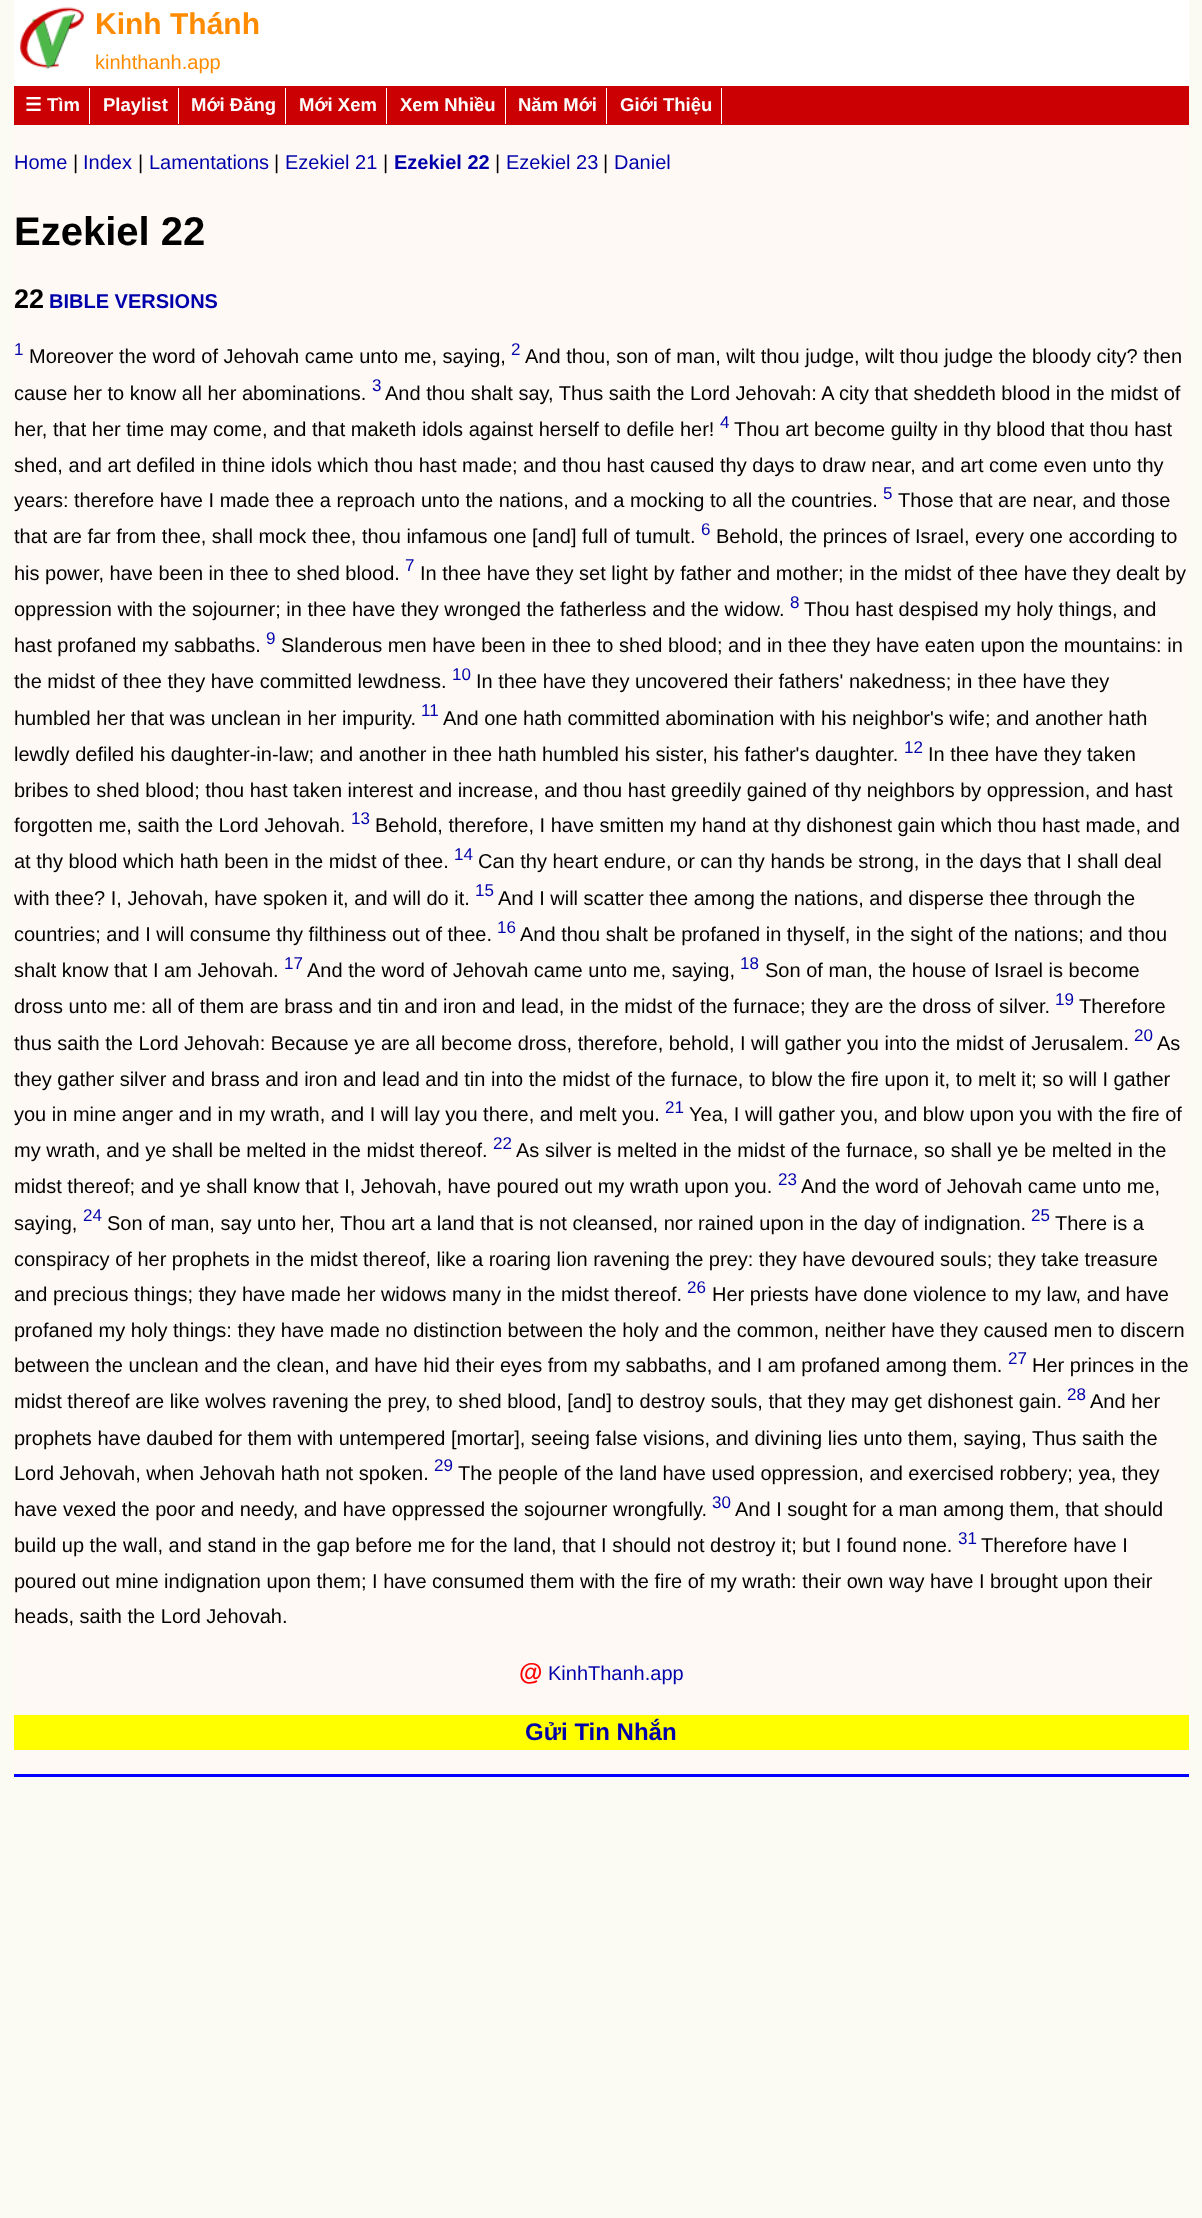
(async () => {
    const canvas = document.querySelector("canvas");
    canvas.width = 1202;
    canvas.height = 2218;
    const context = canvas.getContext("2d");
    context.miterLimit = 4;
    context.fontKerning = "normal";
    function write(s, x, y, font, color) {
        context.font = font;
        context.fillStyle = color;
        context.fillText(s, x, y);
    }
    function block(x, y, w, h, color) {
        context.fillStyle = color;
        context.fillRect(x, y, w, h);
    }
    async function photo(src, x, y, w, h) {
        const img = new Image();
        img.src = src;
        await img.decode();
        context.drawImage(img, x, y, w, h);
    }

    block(0, 0, 1202, 2218, "rgb(251, 251, 243)");
    block(14, 125, 1175, 1649, "rgb(255, 249, 245)");
    block(14, 0, 1175, 86, "rgb(255, 255, 255)");
    await photo("media/1.png", 19, 7, 65, 62);
    write("Kinh Thánh", 95, 34, "bold 30px Liberation Sans", "rgb(255, 140, 0)");
    write("kinhthanh.app", 95, 69, "20px Liberation Sans", "rgb(255, 140, 0)");
    block(14, 86, 1175, 39, "rgb(202, 0, 2)");
    block(89, 88, 1, 36, "rgb(255, 255, 255)");
    write("☰", 25, 111, "bold 18.5px DejaVu Sans", "rgb(255, 255, 255)");
    write("Tìm", 47, 111, "bold 18.5px Liberation Sans", "rgb(255, 255, 255)");
    block(178, 88, 1, 36, "rgb(255, 255, 255)");
    write("Playlist", 103, 111, "bold 18.5px Liberation Sans", "rgb(255, 255, 255)");
    block(285, 88, 1, 36, "rgb(255, 255, 255)");
    write("Mới Đăng", 191, 111, "bold 18.5px Liberation Sans", "rgb(255, 255, 255)");
    block(386, 88, 1, 36, "rgb(255, 255, 255)");
    write("Mới Xem", 299, 111, "bold 18.5px Liberation Sans", "rgb(255, 255, 255)");
    block(505, 88, 1, 36, "rgb(255, 255, 255)");
    write("Xem Nhiều", 400, 111, "bold 18.5px Liberation Sans", "rgb(255, 255, 255)");
    block(606, 88, 1, 36, "rgb(255, 255, 255)");
    write("Năm Mới", 518, 111, "bold 18.5px Liberation Sans", "rgb(255, 255, 255)");
    block(721, 88, 1, 36, "rgb(255, 255, 255)");
    write("Giới Thiệu", 620, 111, "bold 18.5px Liberation Sans", "rgb(255, 255, 255)");
    write("Home", 14, 169, "20px Liberation Sans", "rgb(0, 0, 170)");
    write("|", 73, 169, "20px Liberation Sans", "rgb(0, 0, 0)");
    write("Index", 83, 169, "20px Liberation Sans", "rgb(0, 0, 170)");
    write("|", 138, 169, "20px Liberation Sans", "rgb(0, 0, 0)");
    write("Lamentations", 149, 169, "20px Liberation Sans", "rgb(0, 0, 170)");
    write("|", 274, 169, "20px Liberation Sans", "rgb(0, 0, 0)");
    write("Ezekiel 21", 285, 169, "20px Liberation Sans", "rgb(0, 0, 170)");
    write("|", 383, 169, "20px Liberation Sans", "rgb(0, 0, 0)");
    write("Ezekiel 22", 394, 169, "bold 20px Liberation Sans", "rgb(0, 0, 170)");
    write("|", 495, 169, "20px Liberation Sans", "rgb(0, 0, 0)");
    write("Ezekiel 23", 506, 169, "20px Liberation Sans", "rgb(0, 0, 170)");
    write("|", 603, 169, "20px Liberation Sans", "rgb(0, 0, 0)");
    write("Daniel", 614, 169, "20px Liberation Sans", "rgb(0, 0, 170)");
    write("Ezekiel 22", 14, 245, "bold 40px Liberation Sans", "rgb(0, 0, 0)");
    write("22", 14, 308, "bold 27px Liberation Sans", "rgb(0, 0, 0)");
    write("BIBLE VERSIONS", 49, 308, "bold 20px Liberation Sans", "rgb(0, 0, 170)");
    write("1", 14, 355, "17px Liberation Sans", "rgb(0, 0, 170)");
    write("Moreover the word of Jehovah came unto me, saying,", 29, 363, "20px Liberation Sans", "rgb(0, 0, 0)");
    write("2", 511, 355, "17px Liberation Sans", "rgb(0, 0, 170)");
    write("And thou, son of man, wilt thou judge, wilt thou judge the bloody city? then", 525, 363, "20px Liberation Sans", "rgb(0, 0, 0)");
    write("cause her to know all her abominations.", 14, 400, "20px Liberation Sans", "rgb(0, 0, 0)");
    write("3", 372, 391, "17px Liberation Sans", "rgb(0, 0, 170)");
    write("And thou shalt say, Thus saith the Lord Jehovah: A city that sheddeth blood in the midst of", 385, 400, "20px Liberation Sans", "rgb(0, 0, 0)");
    write("her, that her time may come, and that maketh idols against herself to defile her!", 14, 436, "20px Liberation Sans", "rgb(0, 0, 0)");
    write("4", 720, 428, "17px Liberation Sans", "rgb(0, 0, 170)");
    write("Thou art become guilty in thy blood that thou hast", 734, 436, "20px Liberation Sans", "rgb(0, 0, 0)");
    write("shed, and art defiled in thine idols which thou hast made; and thou hast caused thy days to draw near, and art come even unto thy", 14, 472, "20px Liberation Sans", "rgb(0, 0, 0)");
    write("years: therefore have I made thee a reproach unto the nations, and a mocking to all the countries.", 14, 507, "20px Liberation Sans", "rgb(0, 0, 0)");
    write("5", 883, 499, "17px Liberation Sans", "rgb(0, 0, 170)");
    write("Those that are near, and those", 898, 507, "20px Liberation Sans", "rgb(0, 0, 0)");
    write("that are far from thee, shall mock thee, thou infamous one [and] full of tumult.", 14, 543, "20px Liberation Sans", "rgb(0, 0, 0)");
    write("6", 701, 535, "17px Liberation Sans", "rgb(0, 0, 170)");
    write("Behold, the princes of Israel, every one according to", 716, 543, "20px Liberation Sans", "rgb(0, 0, 0)");
    write("his power, have been in thee to shed blood.", 14, 580, "20px Liberation Sans", "rgb(0, 0, 0)");
    write("7", 405, 571, "17px Liberation Sans", "rgb(0, 0, 170)");
    write("In thee have they set light by father and mother; in the midst of thee have they dealt by", 420, 580, "20px Liberation Sans", "rgb(0, 0, 0)");
    write("oppression with the sojourner; in thee have they wronged the fatherless and the widow.", 14, 616, "20px Liberation Sans", "rgb(0, 0, 0)");
    write("8", 790, 608, "17px Liberation Sans", "rgb(0, 0, 170)");
    write("Thou hast despised my holy things, and", 804, 616, "20px Liberation Sans", "rgb(0, 0, 0)");
    write("hast profaned my sabbaths.", 14, 652, "20px Liberation Sans", "rgb(0, 0, 0)");
    write("9", 266, 644, "17px Liberation Sans", "rgb(0, 0, 170)");
    write("Slanderous men have been in thee to shed blood; and in thee they have eaten upon the mountains: in", 281, 652, "20px Liberation Sans", "rgb(0, 0, 0)");
    write("the midst of thee they have committed lewdness.", 14, 688, "20px Liberation Sans", "rgb(0, 0, 0)");
    write("10", 452, 680, "17px Liberation Sans", "rgb(0, 0, 170)");
    write("In thee have they uncovered their fathers' nakedness; in thee have they", 476, 688, "20px Liberation Sans", "rgb(0, 0, 0)");
    write("humbled her that was unclean in her impurity.", 14, 725, "20px Liberation Sans", "rgb(0, 0, 0)");
    write("11", 421, 716, "17px Liberation Sans", "rgb(0, 0, 170)");
    write("And one hath committed abomination with his neighbor's wife; and another hath", 443, 725, "20px Liberation Sans", "rgb(0, 0, 0)");
    write("lewdly defiled his daughter-in-law; and another in thee hath humbled his sister, his father's daughter.", 14, 761, "20px Liberation Sans", "rgb(0, 0, 0)");
    write("12", 904, 753, "17px Liberation Sans", "rgb(0, 0, 170)");
    write("In thee have they taken", 928, 761, "20px Liberation Sans", "rgb(0, 0, 0)");
    write("bribes to shed blood; thou hast taken interest and increase, and thou hast greedily gained of thy neighbors by oppression, and hast", 14, 797, "20px Liberation Sans", "rgb(0, 0, 0)");
    write("forgotten me, saith the Lord Jehovah.", 14, 832, "20px Liberation Sans", "rgb(0, 0, 0)");
    write("13", 351, 824, "17px Liberation Sans", "rgb(0, 0, 170)");
    write("Behold, therefore, I have smitten my hand at thy dishonest gain which thou hast made, and", 375, 832, "20px Liberation Sans", "rgb(0, 0, 0)");
    write("at thy blood which hath been in the midst of thee.", 14, 868, "20px Liberation Sans", "rgb(0, 0, 0)");
    write("14", 454, 860, "17px Liberation Sans", "rgb(0, 0, 170)");
    write("Can thy heart endure, or can thy hands be strong, in the days that I shall deal", 478, 868, "20px Liberation Sans", "rgb(0, 0, 0)");
    write("with thee? I, Jehovah, have spoken it, and will do it.", 14, 905, "20px Liberation Sans", "rgb(0, 0, 0)");
    write("15", 475, 896, "17px Liberation Sans", "rgb(0, 0, 170)");
    write("And I will scatter thee among the nations, and disperse thee through the", 498, 905, "20px Liberation Sans", "rgb(0, 0, 0)");
    write("countries; and I will consume thy filthiness out of thee.", 14, 941, "20px Liberation Sans", "rgb(0, 0, 0)");
    write("16", 497, 933, "17px Liberation Sans", "rgb(0, 0, 170)");
    write("And thou shalt be profaned in thyself, in the sight of the nations; and thou", 520, 941, "20px Liberation Sans", "rgb(0, 0, 0)");
    write("shalt know that I am Jehovah.", 14, 977, "20px Liberation Sans", "rgb(0, 0, 0)");
    write("17", 284, 969, "17px Liberation Sans", "rgb(0, 0, 170)");
    write("And the word of Jehovah came unto me, saying,", 307, 977, "20px Liberation Sans", "rgb(0, 0, 0)");
    write("18", 740, 969, "17px Liberation Sans", "rgb(0, 0, 170)");
    write("Son of man, the house of Israel is become", 765, 977, "20px Liberation Sans", "rgb(0, 0, 0)");
    write("dross unto me: all of them are brass and tin and iron and lead, in the midst of the furnace; they are the dross of silver.", 14, 1013, "20px Liberation Sans", "rgb(0, 0, 0)");
    write("19", 1055, 1005, "17px Liberation Sans", "rgb(0, 0, 170)");
    write("Therefore", 1079, 1013, "20px Liberation Sans", "rgb(0, 0, 0)");
    write("thus saith the Lord Jehovah: Because ye are all become dross, therefore, behold, I will gather you into the midst of Jerusalem.", 14, 1050, "20px Liberation Sans", "rgb(0, 0, 0)");
    write("20", 1134, 1041, "17px Liberation Sans", "rgb(0, 0, 170)");
    write("As", 1157, 1050, "20px Liberation Sans", "rgb(0, 0, 0)");
    write("they gather silver and brass and iron and lead and tin into the midst of the furnace, to blow the fire upon it, to melt it; so will I gather", 14, 1086, "20px Liberation Sans", "rgb(0, 0, 0)");
    write("you in mine anger and in my wrath, and I will lay you there, and melt you.", 14, 1121, "20px Liberation Sans", "rgb(0, 0, 0)");
    write("21", 665, 1113, "17px Liberation Sans", "rgb(0, 0, 170)");
    write("Yea, I will gather you, and blow upon you with the fire of", 689, 1121, "20px Liberation Sans", "rgb(0, 0, 0)");
    write("my wrath, and ye shall be melted in the midst thereof.", 14, 1157, "20px Liberation Sans", "rgb(0, 0, 0)");
    write("22", 493, 1149, "17px Liberation Sans", "rgb(0, 0, 170)");
    write("As silver is melted in the midst of the furnace, so shall ye be melted in the", 516, 1157, "20px Liberation Sans", "rgb(0, 0, 0)");
    write("midst thereof; and ye shall know that I, Jehovah, have poured out my wrath upon you.", 14, 1193, "20px Liberation Sans", "rgb(0, 0, 0)");
    write("23", 778, 1185, "17px Liberation Sans", "rgb(0, 0, 170)");
    write("And the word of Jehovah came unto me,", 801, 1193, "20px Liberation Sans", "rgb(0, 0, 0)");
    write("saying,", 14, 1230, "20px Liberation Sans", "rgb(0, 0, 0)");
    write("24", 83, 1221, "17px Liberation Sans", "rgb(0, 0, 170)");
    write("Son of man, say unto her, Thou art a land that is not cleansed, nor rained upon in the day of indignation.", 107, 1230, "20px Liberation Sans", "rgb(0, 0, 0)");
    write("25", 1031, 1221, "17px Liberation Sans", "rgb(0, 0, 170)");
    write("There is a", 1055, 1230, "20px Liberation Sans", "rgb(0, 0, 0)");
    write("conspiracy of her prophets in the midst thereof, like a roaring lion ravening the prey: they have devoured souls; they take treasure", 14, 1266, "20px Liberation Sans", "rgb(0, 0, 0)");
    write("and precious things; they have made her widows many in the midst thereof.", 14, 1301, "20px Liberation Sans", "rgb(0, 0, 0)");
    write("26", 687, 1293, "17px Liberation Sans", "rgb(0, 0, 170)");
    write("Her priests have done violence to my law, and have", 712, 1301, "20px Liberation Sans", "rgb(0, 0, 0)");
    write("profaned my holy things: they have made no distinction between the holy and the common, neither have they caused men to discern", 14, 1337, "20px Liberation Sans", "rgb(0, 0, 0)");
    write("between the unclean and the clean, and have hid their eyes from my sabbaths, and I am profaned among them.", 14, 1372, "20px Liberation Sans", "rgb(0, 0, 0)");
    write("27", 1008, 1364, "17px Liberation Sans", "rgb(0, 0, 170)");
    write("Her princes in the", 1032, 1372, "20px Liberation Sans", "rgb(0, 0, 0)");
    write("midst thereof are like wolves ravening the prey, to shed blood, [and] to destroy souls, that they may get dishonest gain.", 14, 1408, "20px Liberation Sans", "rgb(0, 0, 0)");
    write("28", 1067, 1400, "17px Liberation Sans", "rgb(0, 0, 170)");
    write("And her", 1090, 1408, "20px Liberation Sans", "rgb(0, 0, 0)");
    write("prophets have daubed for them with untempered [mortar], seeing false visions, and divining lies unto them, saying, Thus saith the", 14, 1445, "20px Liberation Sans", "rgb(0, 0, 0)");
    write("Lord Jehovah, when Jehovah hath not spoken.", 14, 1480, "20px Liberation Sans", "rgb(0, 0, 0)");
    write("29", 434, 1471, "17px Liberation Sans", "rgb(0, 0, 170)");
    write("The people of the land have used oppression, and exercised robbery; yea, they", 458, 1480, "20px Liberation Sans", "rgb(0, 0, 0)");
    write("have vexed the poor and needy, and have oppressed the sojourner wrongfully.", 14, 1516, "20px Liberation Sans", "rgb(0, 0, 0)");
    write("30", 712, 1508, "17px Liberation Sans", "rgb(0, 0, 170)");
    write("And I sought for a man among them, that should", 735, 1516, "20px Liberation Sans", "rgb(0, 0, 0)");
    write("build up the wall, and stand in the gap before me for the land, that I should not destroy it; but I found none.", 14, 1552, "20px Liberation Sans", "rgb(0, 0, 0)");
    write("31", 958, 1544, "17px Liberation Sans", "rgb(0, 0, 170)");
    write("Therefore have I", 981, 1552, "20px Liberation Sans", "rgb(0, 0, 0)");
    write("poured out mine indignation upon them; I have consumed them with the fire of my wrath: their own way have I brought upon their", 14, 1588, "20px Liberation Sans", "rgb(0, 0, 0)");
    write("heads, saith the Lord Jehovah.", 14, 1623, "20px Liberation Sans", "rgb(0, 0, 0)");
    write("@", 519, 1680, "bold 24px Liberation Sans", "rgb(255, 0, 0)");
    write("KinhThanh.app", 548, 1680, "20px Liberation Sans", "rgb(0, 0, 170)");
    block(14, 1715, 1175, 35, "rgb(255, 255, 0)");
    write("Gửi Tin Nhắn", 525, 1740, "bold 24px Liberation Sans", "rgb(0, 0, 170)");
    block(14, 1774, 1175, 3, "rgb(0, 0, 255)");
})();
